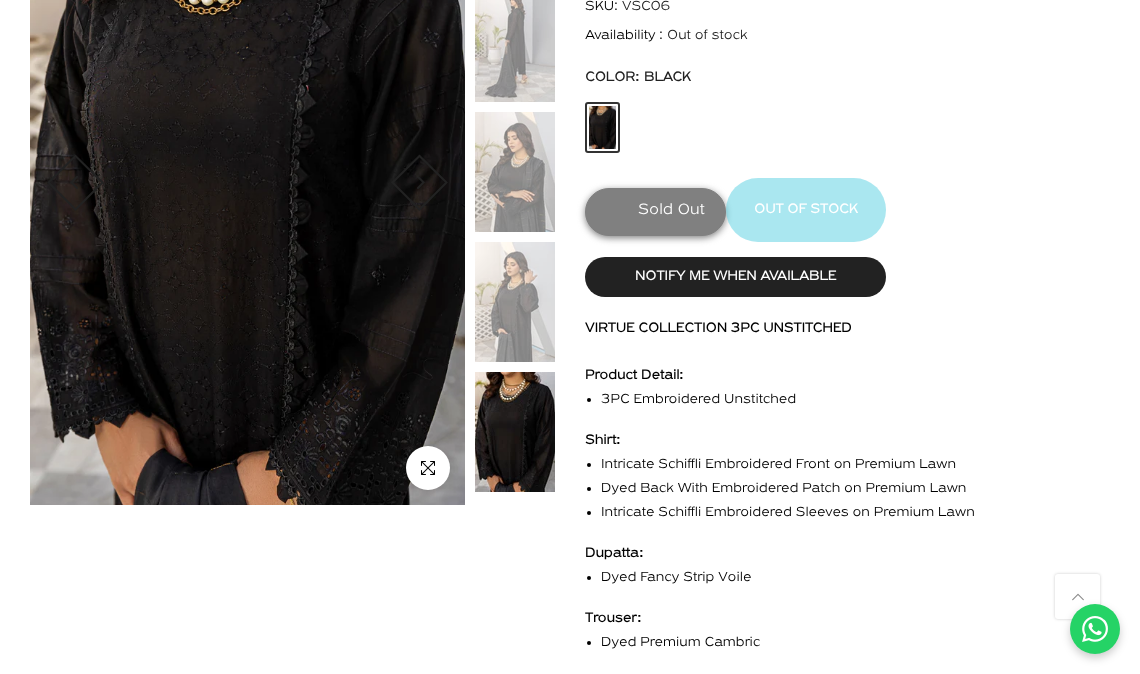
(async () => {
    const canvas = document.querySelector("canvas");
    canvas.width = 1140;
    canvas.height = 674;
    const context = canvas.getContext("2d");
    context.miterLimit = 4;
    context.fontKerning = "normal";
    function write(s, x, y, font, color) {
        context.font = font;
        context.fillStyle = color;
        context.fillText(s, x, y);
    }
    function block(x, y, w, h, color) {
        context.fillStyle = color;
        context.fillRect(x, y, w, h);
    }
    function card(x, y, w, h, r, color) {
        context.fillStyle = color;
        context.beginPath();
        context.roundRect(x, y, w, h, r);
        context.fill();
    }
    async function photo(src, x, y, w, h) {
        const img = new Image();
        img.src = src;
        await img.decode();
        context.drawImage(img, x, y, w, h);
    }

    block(0, 0, 1140, 674, "rgb(255, 255, 255)");
    await photo("media/1.png", 30, 0, 435, 505);
    context.beginPath();
    context.moveTo(75.5, 156);
    context.lineTo(102.5, 182.5);
    context.lineTo(75.5, 209.5);
    context.lineTo(48.5, 182.5);
    context.closePath();
    context.strokeStyle = "rgb(34, 34, 34)";
    context.lineWidth = 2;
    context.stroke();
    await photo("media/2.png", 70, 176, 8, 13);
    context.beginPath();
    context.moveTo(392.5, 182.5);
    context.lineTo(419.5, 156);
    context.lineTo(446.5, 182.5);
    context.lineTo(419.5, 209.5);
    context.closePath();
    context.stroke();
    await photo("media/3.png", 417, 177, 8, 12);
    context.fillStyle = "rgba(0, 0, 0, 0.09)";
    context.filter = "blur(2.5px)";
    context.beginPath();
    context.roundRect(406, 446, 44, 44, 22);
    context.fill();
    context.filter = "none";
    context.fillStyle = "rgb(255, 255, 255)";
    context.beginPath();
    context.arc(428, 468, 22, 0, Math.PI * 2);
    context.fill();
    await photo("media/4.png", 421, 461, 14, 14);
    await photo("media/5.png", 475, 0, 80, 102);
    await photo("media/6.png", 475, 112, 80, 120);
    await photo("media/7.png", 475, 242, 80, 120);
    await photo("media/8.png", 475, 372, 80, 120);
    write("SKU", 585, 10, "300 14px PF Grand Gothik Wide", "rgb(0, 0, 0)");
    write(":", 614, 10, "14px Liberation Sans", "rgb(0, 0, 0)");
    write("VSC06", 622, 10, "300 14px PF Grand Gothik Wide", "rgb(34, 34, 34)");
    write("Availability", 585, 39, "300 14px PF Grand Gothik Wide", "rgb(0, 0, 0)");
    write(":", 659, 39, "14px Liberation Sans", "rgb(0, 0, 0)");
    write("Out of stock", 667, 39, "300 14px PF Grand Gothik Wide", "rgb(34, 34, 34)");
    write("COLOR", 585, 81, "bold 14px PF Grand Gothik Wide", "rgb(34, 34, 34)");
    write(":", 635, 81, "bold 14px Liberation Sans", "rgb(34, 34, 34)");
    write("BLACK", 644, 81, "bold 14px PF Grand Gothik Wide", "rgb(34, 34, 34)");
    await photo("media/9.png", 587, 104, 31, 47);
    context.beginPath();
    context.rect(588, 105, 29, 45);
    context.strokeStyle = "rgb(255, 255, 255)";
    context.stroke();
    context.beginPath();
    context.roundRect(586, 103, 33, 49, 2);
    context.strokeStyle = "rgb(51, 51, 51)";
    context.stroke();
    context.fillStyle = "rgb(128, 128, 128)";
    context.filter = "blur(3.5px)";
    context.beginPath();
    context.roundRect(585, 190, 141, 48, 24);
    context.fill();
    context.filter = "none";
    context.beginPath();
    context.roundRect(585.5, 188.5, 140, 47, 23.5);
    context.fill();
    context.strokeStyle = "rgb(128, 128, 128)";
    context.lineWidth = 1;
    context.stroke();
    write("Sold Out", 638, 214, "300 16px PF Grand Gothik Wide", "rgb(255, 255, 255)");
    card(726, 178, 160, 64, 32, "rgba(86, 207, 225, 0.5)");
    write("OUT OF STOCK", 754, 213, "bold 14px PF Grand Gothik Wide", "rgb(255, 255, 255)");
    card(585, 257, 301, 40, 20, "rgb(34, 34, 34)");
    write("NOTIFY ME WHEN AVAILABLE", 635, 280, "bold 14px PF Grand Gothik Wide", "rgb(255, 255, 255)");
    write("VIRTUE COLLECTION 3PC UNSTITCHED", 585, 332, "bold 14px PF Grand Gothik Wide", "rgb(0, 0, 0)");
    write("Product Detail", 585, 379, "bold 14px PF Grand Gothik Wide", "rgb(0, 0, 0)");
    write(":", 679, 379, "bold 14px Liberation Sans", "rgb(0, 0, 0)");
    context.beginPath();
    context.arc(589, 400, 2, 0, Math.PI * 2);
    context.fill();
    write("3PC Embroidered Unstitched", 601, 403, "300 14px PF Grand Gothik Wide", "rgb(0, 0, 0)");
    write("Shirt", 585, 444, "bold 14px PF Grand Gothik Wide", "rgb(0, 0, 0)");
    write(":", 616, 444, "bold 14px Liberation Sans", "rgb(0, 0, 0)");
    context.beginPath();
    context.arc(589, 465, 2, 0, Math.PI * 2);
    context.fill();
    write("Intricate Schiffli Embroidered Front on Premium Lawn", 601, 468, "300 14px PF Grand Gothik Wide", "rgb(0, 0, 0)");
    context.beginPath();
    context.arc(589, 489, 2, 0, Math.PI * 2);
    context.fill();
    write("Dyed Back With Embroidered Patch on Premium Lawn", 601, 492, "300 14px PF Grand Gothik Wide", "rgb(0, 0, 0)");
    context.beginPath();
    context.arc(589, 513, 2, 0, Math.PI * 2);
    context.fill();
    write("Intricate Schiffli Embroidered Sleeves on Premium Lawn", 601, 516, "300 14px PF Grand Gothik Wide", "rgb(0, 0, 0)");
    write("Dupatta", 585, 557, "bold 14px PF Grand Gothik Wide", "rgb(0, 0, 0)");
    write(":", 639, 557, "bold 14px Liberation Sans", "rgb(0, 0, 0)");
    context.beginPath();
    context.arc(589, 578, 2, 0, Math.PI * 2);
    context.fill();
    write("Dyed Fancy Strip Voile", 601, 581, "300 14px PF Grand Gothik Wide", "rgb(0, 0, 0)");
    write("Trouser", 585, 622, "bold 14px PF Grand Gothik Wide", "rgb(0, 0, 0)");
    write(":", 637, 622, "bold 14px Liberation Sans", "rgb(0, 0, 0)");
    context.beginPath();
    context.arc(589, 643, 2, 0, Math.PI * 2);
    context.fill();
    write("Dyed Premium Cambric", 601, 646, "300 14px PF Grand Gothik Wide", "rgb(0, 0, 0)");
    context.fillStyle = "rgba(0, 0, 0, 0.2)";
    context.filter = "blur(1.5px)";
    context.beginPath();
    context.roundRect(1055, 574, 45, 45, 3);
    context.fill();
    context.filter = "none";
    card(1055, 574, 45, 45, 3, "rgb(255, 255, 255)");
    await photo("media/10.png", 1072, 593, 12, 8);
    context.fillStyle = "rgba(0, 0, 0, 0.2)";
    context.filter = "blur(4px)";
    context.beginPath();
    context.roundRect(1070, 608, 50, 50, 25);
    context.fill();
    context.filter = "none";
    context.fillStyle = "rgb(37, 211, 102)";
    context.beginPath();
    context.arc(1095, 629, 25, 0, Math.PI * 2);
    context.fill();
    await photo("media/11.png", 1082, 616, 26, 26);
})();
